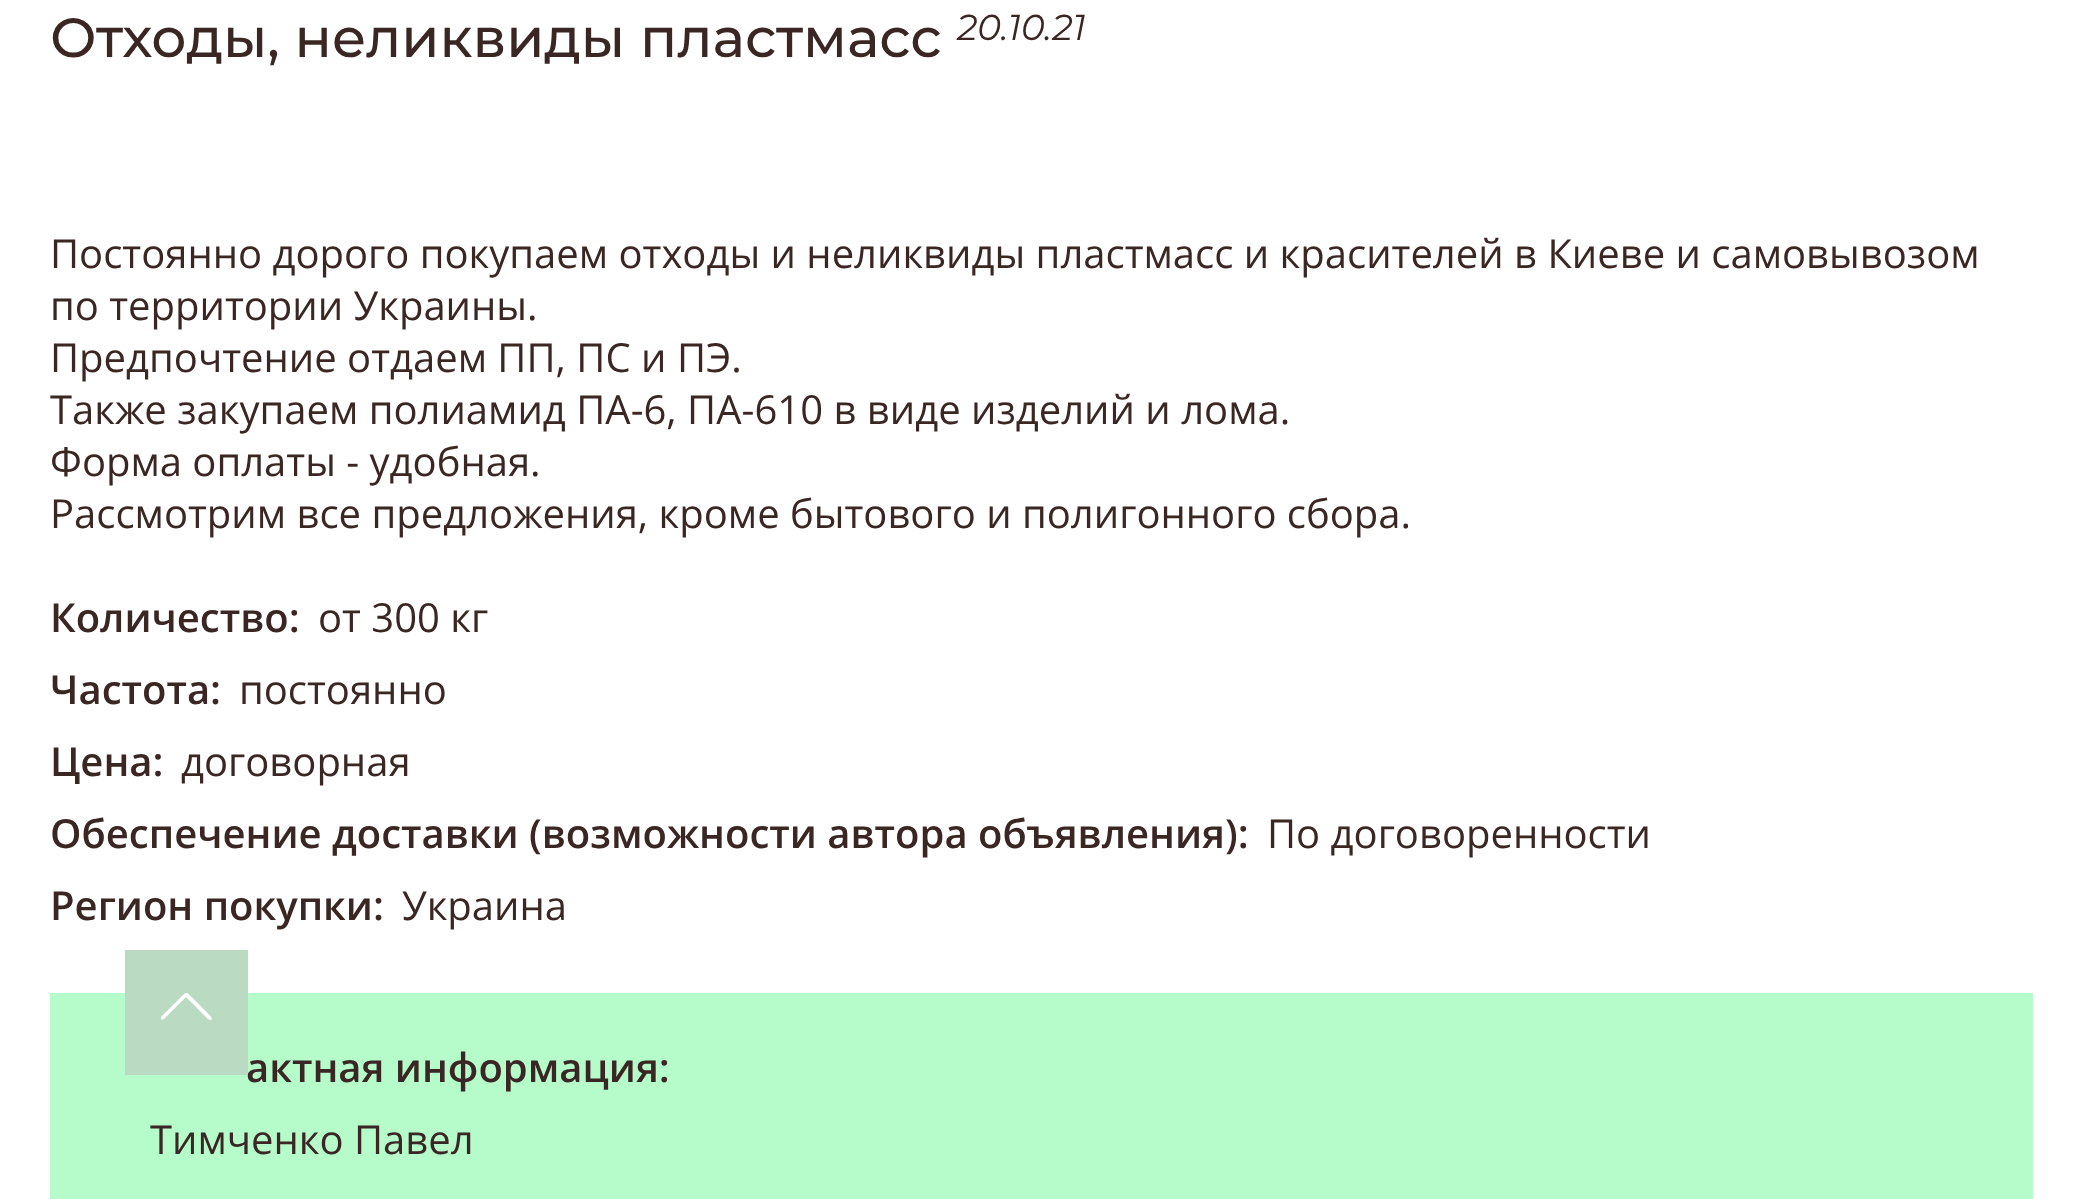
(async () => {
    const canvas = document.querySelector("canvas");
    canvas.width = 2082;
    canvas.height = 1199;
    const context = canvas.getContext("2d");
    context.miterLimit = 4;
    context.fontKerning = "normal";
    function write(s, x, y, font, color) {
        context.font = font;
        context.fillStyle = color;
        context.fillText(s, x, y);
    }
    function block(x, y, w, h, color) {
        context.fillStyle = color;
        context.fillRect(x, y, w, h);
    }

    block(0, 0, 2082, 1199, "rgb(255, 255, 255)");
    write("Отходы, неликвиды пластмасс", 50, 57, "500 55px Montserrat", "rgb(58, 38, 35)");
    write("20.10.21", 957, 40, "italic 36px Montserrat", "rgb(58, 38, 35)");
    write("Постоянно дорого покупаем отходы и неликвиды пластмасс и красителей в Киеве и самовывозом", 50, 268, "40px Open Sans", "rgb(58, 38, 35)");
    write("по территории Украины.", 50, 320, "40px Open Sans", "rgb(58, 38, 35)");
    write("Предпочтение отдаем ПП, ПС и ПЭ.", 50, 372, "40px Open Sans", "rgb(58, 38, 35)");
    write("Также закупаем полиамид ПА-6, ПА-610 в виде изделий и лома.", 50, 424, "40px Open Sans", "rgb(58, 38, 35)");
    write("Форма оплаты - удобная.", 50, 476, "40px Open Sans", "rgb(58, 38, 35)");
    write("Рассмотрим все предложения, кроме бытового и полигонного сбора.", 50, 528, "40px Open Sans", "rgb(58, 38, 35)");
    write("Количество:", 50, 632, "600 40px Open Sans", "rgb(58, 38, 35)");
    write("от 300 кг", 318, 632, "40px Open Sans", "rgb(58, 38, 35)");
    write("Частота:", 50, 704, "600 40px Open Sans", "rgb(58, 38, 35)");
    write("постоянно", 239, 704, "40px Open Sans", "rgb(58, 38, 35)");
    write("Цена:", 50, 776, "600 40px Open Sans", "rgb(58, 38, 35)");
    write("договорная", 181, 776, "40px Open Sans", "rgb(58, 38, 35)");
    write("Обеспечение доставки (возможности автора объявления):", 50, 848, "600 40px Open Sans", "rgb(58, 38, 35)");
    write("По договоренности", 1267, 848, "40px Open Sans", "rgb(58, 38, 35)");
    write("Регион покупки:", 50, 920, "600 40px Open Sans", "rgb(58, 38, 35)");
    write("Украина", 402, 920, "40px Open Sans", "rgb(58, 38, 35)");
    block(50, 993, 1983, 206, "rgb(182, 252, 203)");
    write("актная информация:", 246, 1082, "600 40px Open Sans", "rgb(58, 38, 35)");
    write("Тимченко Павел", 150, 1154, "40px Open Sans", "rgb(58, 38, 35)");
    block(125, 950, 123, 125, "rgb(186, 219, 194)");
    context.fillStyle = "rgb(255, 255, 255)";
    context.beginPath();
    context.moveTo(185, 993);
    context.lineTo(187, 993);
    context.bezierCurveTo(188, 993, 212, 1017, 212, 1018);
    context.bezierCurveTo(212, 1020, 210, 1021, 208, 1019);
    context.lineTo(186, 997);
    context.lineTo(164, 1019);
    context.bezierCurveTo(163, 1020, 162, 1020, 161, 1019);
    context.bezierCurveTo(161, 1019, 161, 1017, 161, 1017);
    context.closePath();
    context.fill("evenodd");
})();
